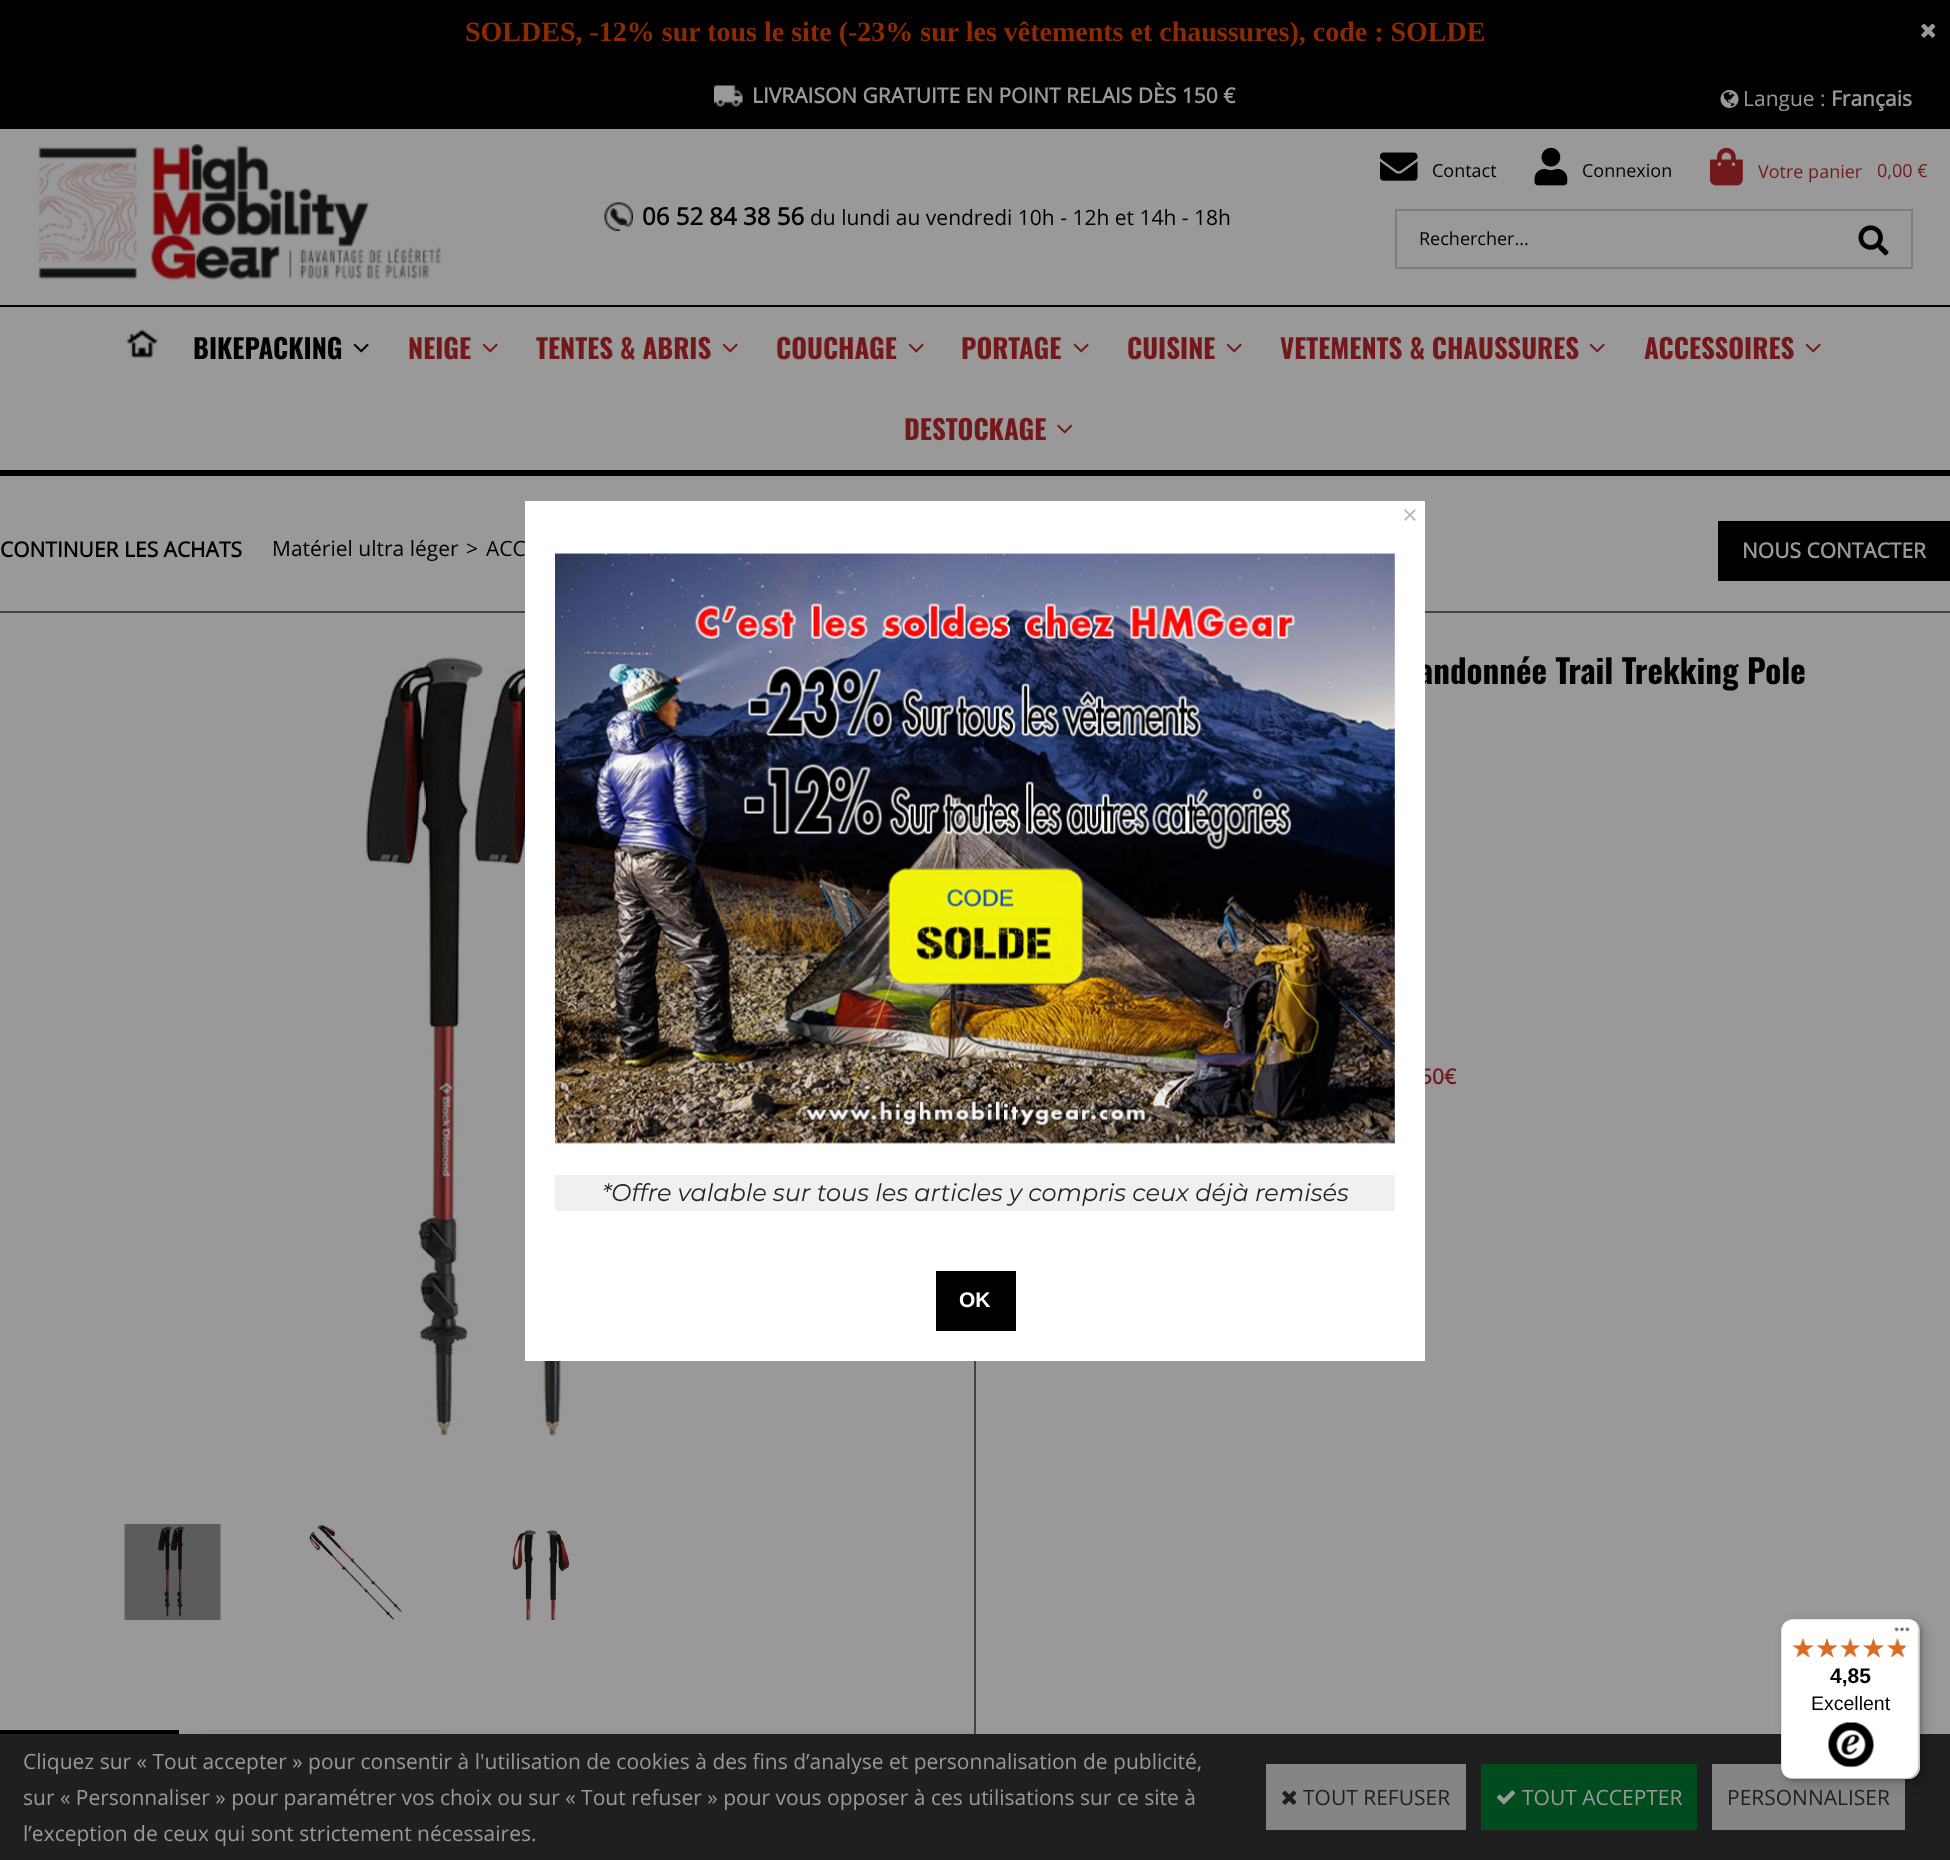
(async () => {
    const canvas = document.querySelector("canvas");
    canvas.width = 1950;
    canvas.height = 1860;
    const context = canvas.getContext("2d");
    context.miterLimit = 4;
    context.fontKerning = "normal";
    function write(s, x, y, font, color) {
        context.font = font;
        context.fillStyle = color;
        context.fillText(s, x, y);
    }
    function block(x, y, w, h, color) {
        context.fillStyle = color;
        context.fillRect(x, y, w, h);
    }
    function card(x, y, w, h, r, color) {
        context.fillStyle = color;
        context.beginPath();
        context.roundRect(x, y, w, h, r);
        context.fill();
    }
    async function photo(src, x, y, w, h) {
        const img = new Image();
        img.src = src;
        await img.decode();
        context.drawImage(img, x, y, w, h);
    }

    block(0, 0, 1950, 1860, "rgb(153, 153, 153)");
    block(0, 0, 1950, 129, "rgb(0, 0, 0)");
    write("SOLDES, -12% sur tous le site (-23% sur les vêtements et chaussures), code : SOLDE", 465, 41, "bold 28px Liberation Serif", "rgb(141, 42, 0)");
    await photo("media/1.png", 1921, 23, 15, 15);
    await photo("media/2.png", 714, 85, 29, 22);
    write("LIVRAISON GRATUITE EN POINT RELAIS DÈS 150 €", 752, 103, "bold 21px Open Sans", "rgb(153, 153, 153)");
    await photo("media/3.png", 1720, 90, 19, 18);
    write("Langue :", 1743, 106, "21px Open Sans", "rgb(153, 153, 153)");
    write("Français", 1831, 106, "bold 21px Open Sans", "rgb(153, 153, 153)");
    await photo("media/4.png", 38, 144, 403, 137);
    await photo("media/5.png", 604, 202, 29, 29);
    write("06 52 84 38 56", 642, 225, "bold 24px Open Sans", "rgb(0, 0, 0)");
    write("du lundi au vendredi 10h - 12h et 14h - 18h", 810, 225, "21px Open Sans", "rgb(0, 0, 0)");
    await photo("media/6.png", 1380, 152, 38, 29);
    write("Contact", 1432, 177, "18px Open Sans", "rgb(0, 0, 0)");
    await photo("media/7.png", 1534, 147, 34, 39);
    write("Connexion", 1582, 177, "18px Open Sans", "rgb(0, 0, 0)");
    await photo("media/8.png", 1710, 147, 33, 39);
    write("Votre panier", 1758, 178, "18px Open Sans", "rgb(116, 25, 27)");
    write("0,00 €", 1877, 177, "18px Open Sans", "rgb(116, 25, 27)");
    block(1395, 209, 518, 2, "rgb(125, 125, 125)");
    block(1395, 267, 441, 2, "rgb(125, 125, 125)");
    block(1395, 209, 2, 60, "rgb(125, 125, 125)");
    write("Rechercher...", 1419, 245, "18px Open Sans", "rgb(0, 0, 0)");
    block(1911, 209, 2, 60, "rgb(125, 125, 125)");
    block(1836, 267, 77, 2, "rgb(125, 125, 125)");
    await photo("media/9.png", 1858, 225, 31, 31);
    block(0, 305, 1950, 2, "rgb(0, 0, 0)");
    block(0, 470, 1950, 6, "rgb(0, 0, 0)");
    await photo("media/10.png", 126, 329, 32, 30);
    write("BIKEPACKING", 193, 359, "bold 27px Oswald", "rgb(0, 0, 0)");
    await photo("media/11.png", 353, 343, 16, 10);
    write("NEIGE", 408, 359, "bold 27px Oswald", "rgb(116, 25, 27)");
    await photo("media/12.png", 482, 343, 16, 10);
    write("TENTES & ABRIS", 536, 359, "bold 27px Oswald", "rgb(116, 25, 27)");
    await photo("media/12.png", 722, 343, 16, 10);
    write("COUCHAGE", 776, 359, "bold 27px Oswald", "rgb(116, 25, 27)");
    await photo("media/12.png", 908, 343, 16, 10);
    write("PORTAGE", 961, 359, "bold 27px Oswald", "rgb(116, 25, 27)");
    await photo("media/12.png", 1073, 343, 16, 10);
    write("CUISINE", 1127, 359, "bold 27px Oswald", "rgb(116, 25, 27)");
    await photo("media/12.png", 1226, 343, 16, 10);
    write("VETEMENTS & CHAUSSURES", 1280, 359, "bold 27px Oswald", "rgb(116, 25, 27)");
    await photo("media/12.png", 1589, 343, 16, 10);
    write("ACCESSOIRES", 1644, 359, "bold 27px Oswald", "rgb(116, 25, 27)");
    await photo("media/12.png", 1805, 343, 16, 10);
    write("DESTOCKAGE", 904, 440, "bold 27px Oswald", "rgb(116, 25, 27)");
    await photo("media/13.png", 1057, 424, 16, 10);
    block(0, 611, 1950, 2, "rgb(67, 67, 67)");
    write("CONTINUER LES ACHATS", 0, 557, "bold 21px Open Sans", "rgb(0, 0, 0)");
    write("Matériel ultra léger", 272, 556, "21px Open Sans", "rgb(0, 0, 0)");
    write(">", 466, 556, "21px Open Sans", "rgb(0, 0, 0)");
    write("ACC", 486, 556, "21px Open Sans", "rgb(0, 0, 0)");
    block(1718, 521, 232, 60, "rgb(0, 0, 0)");
    write("NOUS CONTACTER", 1742, 558, "bold 21px Open Sans", "rgb(153, 153, 153)");
    block(974, 1361, 2, 373, "rgb(67, 67, 67)");
    await photo("media/14.png", 366, 657, 226, 780);
    await photo("media/15.png", 124, 1524, 97, 96);
    await photo("media/16.png", 309, 1524, 93, 96);
    await photo("media/17.png", 512, 1530, 58, 90);
    block(179, 1730, 795, 4, "rgb(149, 149, 149)");
    block(0, 1730, 179, 4, "rgb(0, 0, 0)");
    block(201, 1730, 242, 4, "rgb(145, 145, 145)");
    write("andonnée Trail Trekking Pole", 1418, 684, "bold 33px Oswald", "rgb(0, 0, 0)");
    write("50€", 1420, 1084, "bold 21px Open Sans", "rgb(116, 25, 27)");
    block(0, 1734, 1950, 126, "rgb(31, 31, 31)");
    write("Cliquez sur « Tout accepter » pour consentir à l'utilisation de cookies à des fins d’analyse et personnalisation de publicité,", 23, 1769, "21px Open Sans", "rgb(153, 153, 153)");
    write("sur « Personnaliser » pour paramétrer vos choix ou sur « Tout refuser » pour vous opposer à ces utilisations sur ce site à", 23, 1805, "21px Open Sans", "rgb(153, 153, 153)");
    write("l’exception de ceux qui sont strictement nécessaires.", 23, 1841, "21px Open Sans", "rgb(153, 153, 153)");
    block(1266, 1764, 200, 66, "rgb(133, 133, 133)");
    await photo("media/18.png", 1282, 1790, 15, 15);
    write("TOUT REFUSER", 1303, 1805, "21px Open Sans", "rgb(31, 31, 31)");
    block(1481, 1764, 216, 66, "rgb(0, 76, 31)");
    await photo("media/19.png", 1496, 1790, 20, 15);
    write("TOUT ACCEPTER", 1522, 1805, "21px Open Sans", "rgb(153, 153, 153)");
    block(1712, 1764, 193, 66, "rgb(133, 133, 133)");
    write("PERSONNALISER", 1727, 1805, "21px Open Sans", "rgb(31, 31, 31)");
    block(525, 501, 900, 860, "rgb(255, 255, 255)");
    write("×", 1402, 524, "27px Liberation Sans", "rgb(187, 187, 187)");
    await photo("media/20.png", 555, 553, 840, 591);
    block(555, 1175, 840, 36, "rgb(240, 240, 240)");
    write("*Offre valable sur tous les articles y compris ceux déjà remisés", 602, 1201, "italic 24px Montserrat", "rgb(33, 37, 41)");
    block(936, 1271, 80, 60, "rgb(0, 0, 0)");
    write("OK", 959, 1307, "bold 21px Liberation Sans", "rgb(255, 255, 255)");
    context.fillStyle = "rgba(0, 0, 0, 0.15)";
    context.filter = "blur(6px)";
    context.beginPath();
    context.roundRect(1785, 1623, 140, 161, 12);
    context.fill();
    context.filter = "none";
    context.filter = "blur(1.5px)";
    context.beginPath();
    context.roundRect(1782, 1620, 140, 161, 12);
    context.fill();
    context.filter = "none";
    card(1781, 1619, 139, 160, 12, "rgb(255, 255, 255)");
    context.fillStyle = "rgba(0, 0, 0, 0.1)";
    context.beginPath();
    context.moveTo(1794, 1620);
    context.lineTo(1910, 1620);
    context.lineTo(1915, 1621);
    context.bezierCurveTo(1913, 1620, 1910, 1619, 1908, 1619);
    context.lineTo(1793, 1619);
    context.bezierCurveTo(1786, 1619, 1781, 1624, 1781, 1631);
    context.lineTo(1781, 1767);
    context.bezierCurveTo(1781, 1770, 1782, 1773, 1784, 1775);
    context.bezierCurveTo(1783, 1773, 1782, 1771, 1782, 1768);
    context.lineTo(1782, 1632);
    context.bezierCurveTo(1782, 1625, 1787, 1620, 1794, 1620);
    context.closePath();
    context.fill();
    context.fillStyle = "rgba(0, 0, 0, 0.2)";
    context.beginPath();
    context.moveTo(1787, 1777);
    context.bezierCurveTo(1788, 1778, 1791, 1779, 1793, 1779);
    context.lineTo(1908, 1779);
    context.bezierCurveTo(1915, 1779, 1920, 1774, 1920, 1767);
    context.lineTo(1920, 1631);
    context.bezierCurveTo(1920, 1627, 1918, 1624, 1916, 1622);
    context.bezierCurveTo(1917, 1624, 1918, 1626, 1918, 1629);
    context.lineTo(1918, 1766);
    context.bezierCurveTo(1918, 1772, 1913, 1778, 1906, 1778);
    context.lineTo(1791, 1778);
    context.closePath();
    context.fill();
    context.fillStyle = "rgba(50, 50, 50, 0.2)";
    context.beginPath();
    context.moveTo(1785, 1776);
    context.bezierCurveTo(1787, 1778, 1790, 1779, 1793, 1779);
    context.lineTo(1908, 1779);
    context.bezierCurveTo(1915, 1779, 1920, 1774, 1920, 1767);
    context.lineTo(1920, 1631);
    context.bezierCurveTo(1920, 1628, 1919, 1625, 1917, 1623);
    context.bezierCurveTo(1918, 1625, 1919, 1627, 1919, 1630);
    context.lineTo(1919, 1766);
    context.bezierCurveTo(1919, 1773, 1914, 1778, 1907, 1778);
    context.lineTo(1792, 1778);
    context.bezierCurveTo(1789, 1778, 1787, 1777, 1785, 1776);
    context.closePath();
    context.fill();
    context.fillStyle = "rgba(255, 255, 255, 0.3)";
    context.beginPath();
    context.moveTo(1785, 1776);
    context.bezierCurveTo(1787, 1778, 1790, 1779, 1793, 1779);
    context.lineTo(1908, 1779);
    context.bezierCurveTo(1915, 1779, 1920, 1774, 1920, 1767);
    context.lineTo(1920, 1631);
    context.bezierCurveTo(1920, 1628, 1919, 1625, 1917, 1623);
    context.bezierCurveTo(1918, 1625, 1919, 1627, 1919, 1630);
    context.lineTo(1919, 1766);
    context.bezierCurveTo(1919, 1773, 1914, 1778, 1907, 1778);
    context.lineTo(1792, 1778);
    context.bezierCurveTo(1789, 1778, 1787, 1777, 1785, 1776);
    context.closePath();
    context.fill();
    await photo("media/21.png", 1894, 1627, 16, 5);
    await photo("media/22.png", 1792, 1638, 22, 20);
    await photo("media/23.png", 1817, 1638, 20, 19);
    await photo("media/24.png", 1840, 1638, 20, 20);
    await photo("media/25.png", 1863, 1638, 21, 19);
    await photo("media/26.png", 1887, 1638, 21, 20);
    await photo("media/27.png", 1792, 1638, 22, 19);
    await photo("media/28.png", 1817, 1638, 20, 20);
    await photo("media/29.png", 1840, 1638, 20, 19);
    await photo("media/30.png", 1863, 1638, 21, 20);
    await photo("media/31.png", 1887, 1638, 18, 19);
    write("4,85", 1830, 1683, "bold 21px Liberation Sans", "rgb(0, 0, 0)");
    write("Excellent", 1811, 1710, "19.5px Liberation Sans", "rgb(0, 0, 0)");
    await photo("media/32.png", 1828, 1722, 46, 46);
})();
